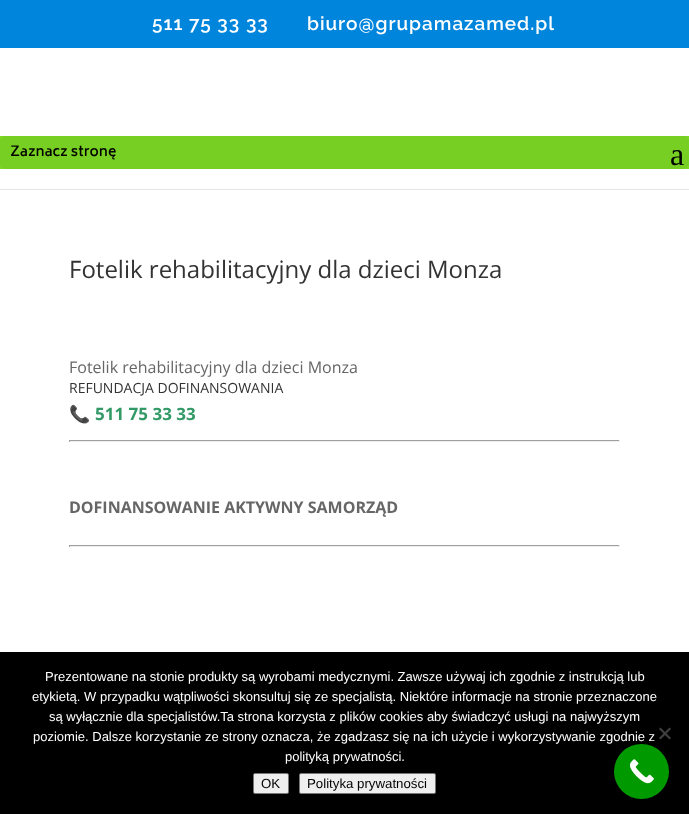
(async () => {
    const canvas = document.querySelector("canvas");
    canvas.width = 689;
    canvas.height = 814;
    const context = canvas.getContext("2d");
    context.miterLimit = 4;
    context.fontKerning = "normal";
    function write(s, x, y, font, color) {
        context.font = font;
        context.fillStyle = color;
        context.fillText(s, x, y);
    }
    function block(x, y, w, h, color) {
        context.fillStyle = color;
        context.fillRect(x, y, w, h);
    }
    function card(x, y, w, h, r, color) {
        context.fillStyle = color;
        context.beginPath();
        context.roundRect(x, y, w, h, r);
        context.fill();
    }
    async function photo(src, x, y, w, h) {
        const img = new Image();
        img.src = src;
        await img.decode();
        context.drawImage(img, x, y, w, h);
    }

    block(0, 0, 689, 814, "rgb(255, 255, 255)");
    block(0, 0, 689, 48, "rgb(0, 133, 221)");
    context.letterSpacing = "1px";
    write("511 75 33 33", 152, 30, "600 19px Raleway", "rgb(255, 255, 255)");
    write("biuro@grupamazamed.pl", 307, 30, "600 19px Raleway", "rgb(255, 255, 255)");
    block(0, 189, 689, 1, "rgb(230, 230, 230)");
    block(0, 136, 689, 33, "rgb(124, 218, 36)");
    card(0, 136, 689, 33, 5, "rgb(118, 207, 34)");
    context.letterSpacing = "0px";
    write("Zaznacz stronę", 10, 156, "600 14px Biryani", "rgb(0, 0, 0)");
    write("a", 670, 165, "32px Liberation Serif", "rgb(0, 0, 0)");
    write("Fotelik rehabilitacyjny dla dzieci Monza", 69, 278, "24px Open Sans", "rgb(51, 51, 51)");
    write("Fotelik rehabilitacyjny dla dzieci Monza", 69, 373, "16px Open Sans", "rgb(102, 102, 102)");
    write("REFUNDACJA DOFINANSOWANIA", 69, 393, "14px Open Sans", "rgb(51, 51, 51)");
    write("📞", 69, 420, "bold 17px Noto Color Emoji", "rgb(102, 102, 102)");
    write("511 75 33 33", 95, 420, "bold 17px Open Sans", "rgb(51, 153, 102)");
    block(69, 440, 551, 1, "rgb(159, 159, 159)");
    block(619, 440, 1, 2, "rgb(238, 238, 238)");
    block(69, 441, 551, 1, "rgb(238, 238, 238)");
    block(69, 440, 1, 2, "rgb(159, 159, 159)");
    write("DOFINANSOWANIE AKTYWNY SAMORZĄD", 69, 513, "bold 16px Open Sans", "rgb(102, 102, 102)");
    block(69, 545, 551, 1, "rgb(159, 159, 159)");
    block(619, 545, 1, 2, "rgb(238, 238, 238)");
    block(69, 546, 551, 1, "rgb(238, 238, 238)");
    block(69, 545, 1, 2, "rgb(159, 159, 159)");
    block(0, 652, 689, 162, "rgb(0, 0, 0)");
    write("Prezentowane na stonie produkty są wyrobami medycznymi. Zawsze używaj ich zgodnie z instrukcją lub", 45, 681, "13px Liberation Sans", "rgb(255, 255, 255)");
    write("etykietą. W przypadku wątpliwości skonsultuj się ze specjalistą. Niektóre informacje na stronie przeznaczone", 32, 701, "13px Liberation Sans", "rgb(255, 255, 255)");
    write("są wyłącznie dla specjalistów.Ta strona korzysta z plików cookies aby świadczyć usługi na najwyższym", 49, 721, "13px Liberation Sans", "rgb(255, 255, 255)");
    write("poziomie. Dalsze korzystanie ze strony oznacza, że zgadzasz się na ich użycie i wykorzystywanie zgodnie z", 33, 741, "13px Liberation Sans", "rgb(255, 255, 255)");
    write("polityką prywatności.", 285, 761, "13px Liberation Sans", "rgb(255, 255, 255)");
    context.fillStyle = "rgb(64, 64, 64)";
    context.beginPath();
    context.moveTo(669.5, 727.5);
    context.lineTo(671, 729);
    context.lineTo(660.5, 739.5);
    context.lineTo(659, 738);
    context.closePath();
    context.fill();
    context.beginPath();
    context.moveTo(659, 729);
    context.lineTo(660.5, 727.5);
    context.lineTo(671, 738);
    context.lineTo(669.5, 739.5);
    context.closePath();
    context.fill();
    context.fillStyle = "rgb(239, 239, 239)";
    context.beginPath();
    context.roundRect(253.5, 773.5, 35, 20, 1.5);
    context.fill();
    context.strokeStyle = "rgb(118, 118, 118)";
    context.stroke();
    write("OK", 261, 788, "13.25px Liberation Sans", "rgb(0, 0, 0)");
    context.fillStyle = "rgb(239, 239, 239)";
    context.beginPath();
    context.roundRect(299.5, 773.5, 136, 20, 1.5);
    context.fill();
    context.stroke();
    write("Polityka prywatności", 307, 788, "13.25px Liberation Sans", "rgb(0, 0, 0)");
    context.fillStyle = "rgb(0, 153, 0)";
    context.beginPath();
    context.arc(641.5, 771.5, 27.5, 0, Math.PI * 2);
    context.fill();
    await photo("media/1.png", 629, 759, 25, 25);
})();
